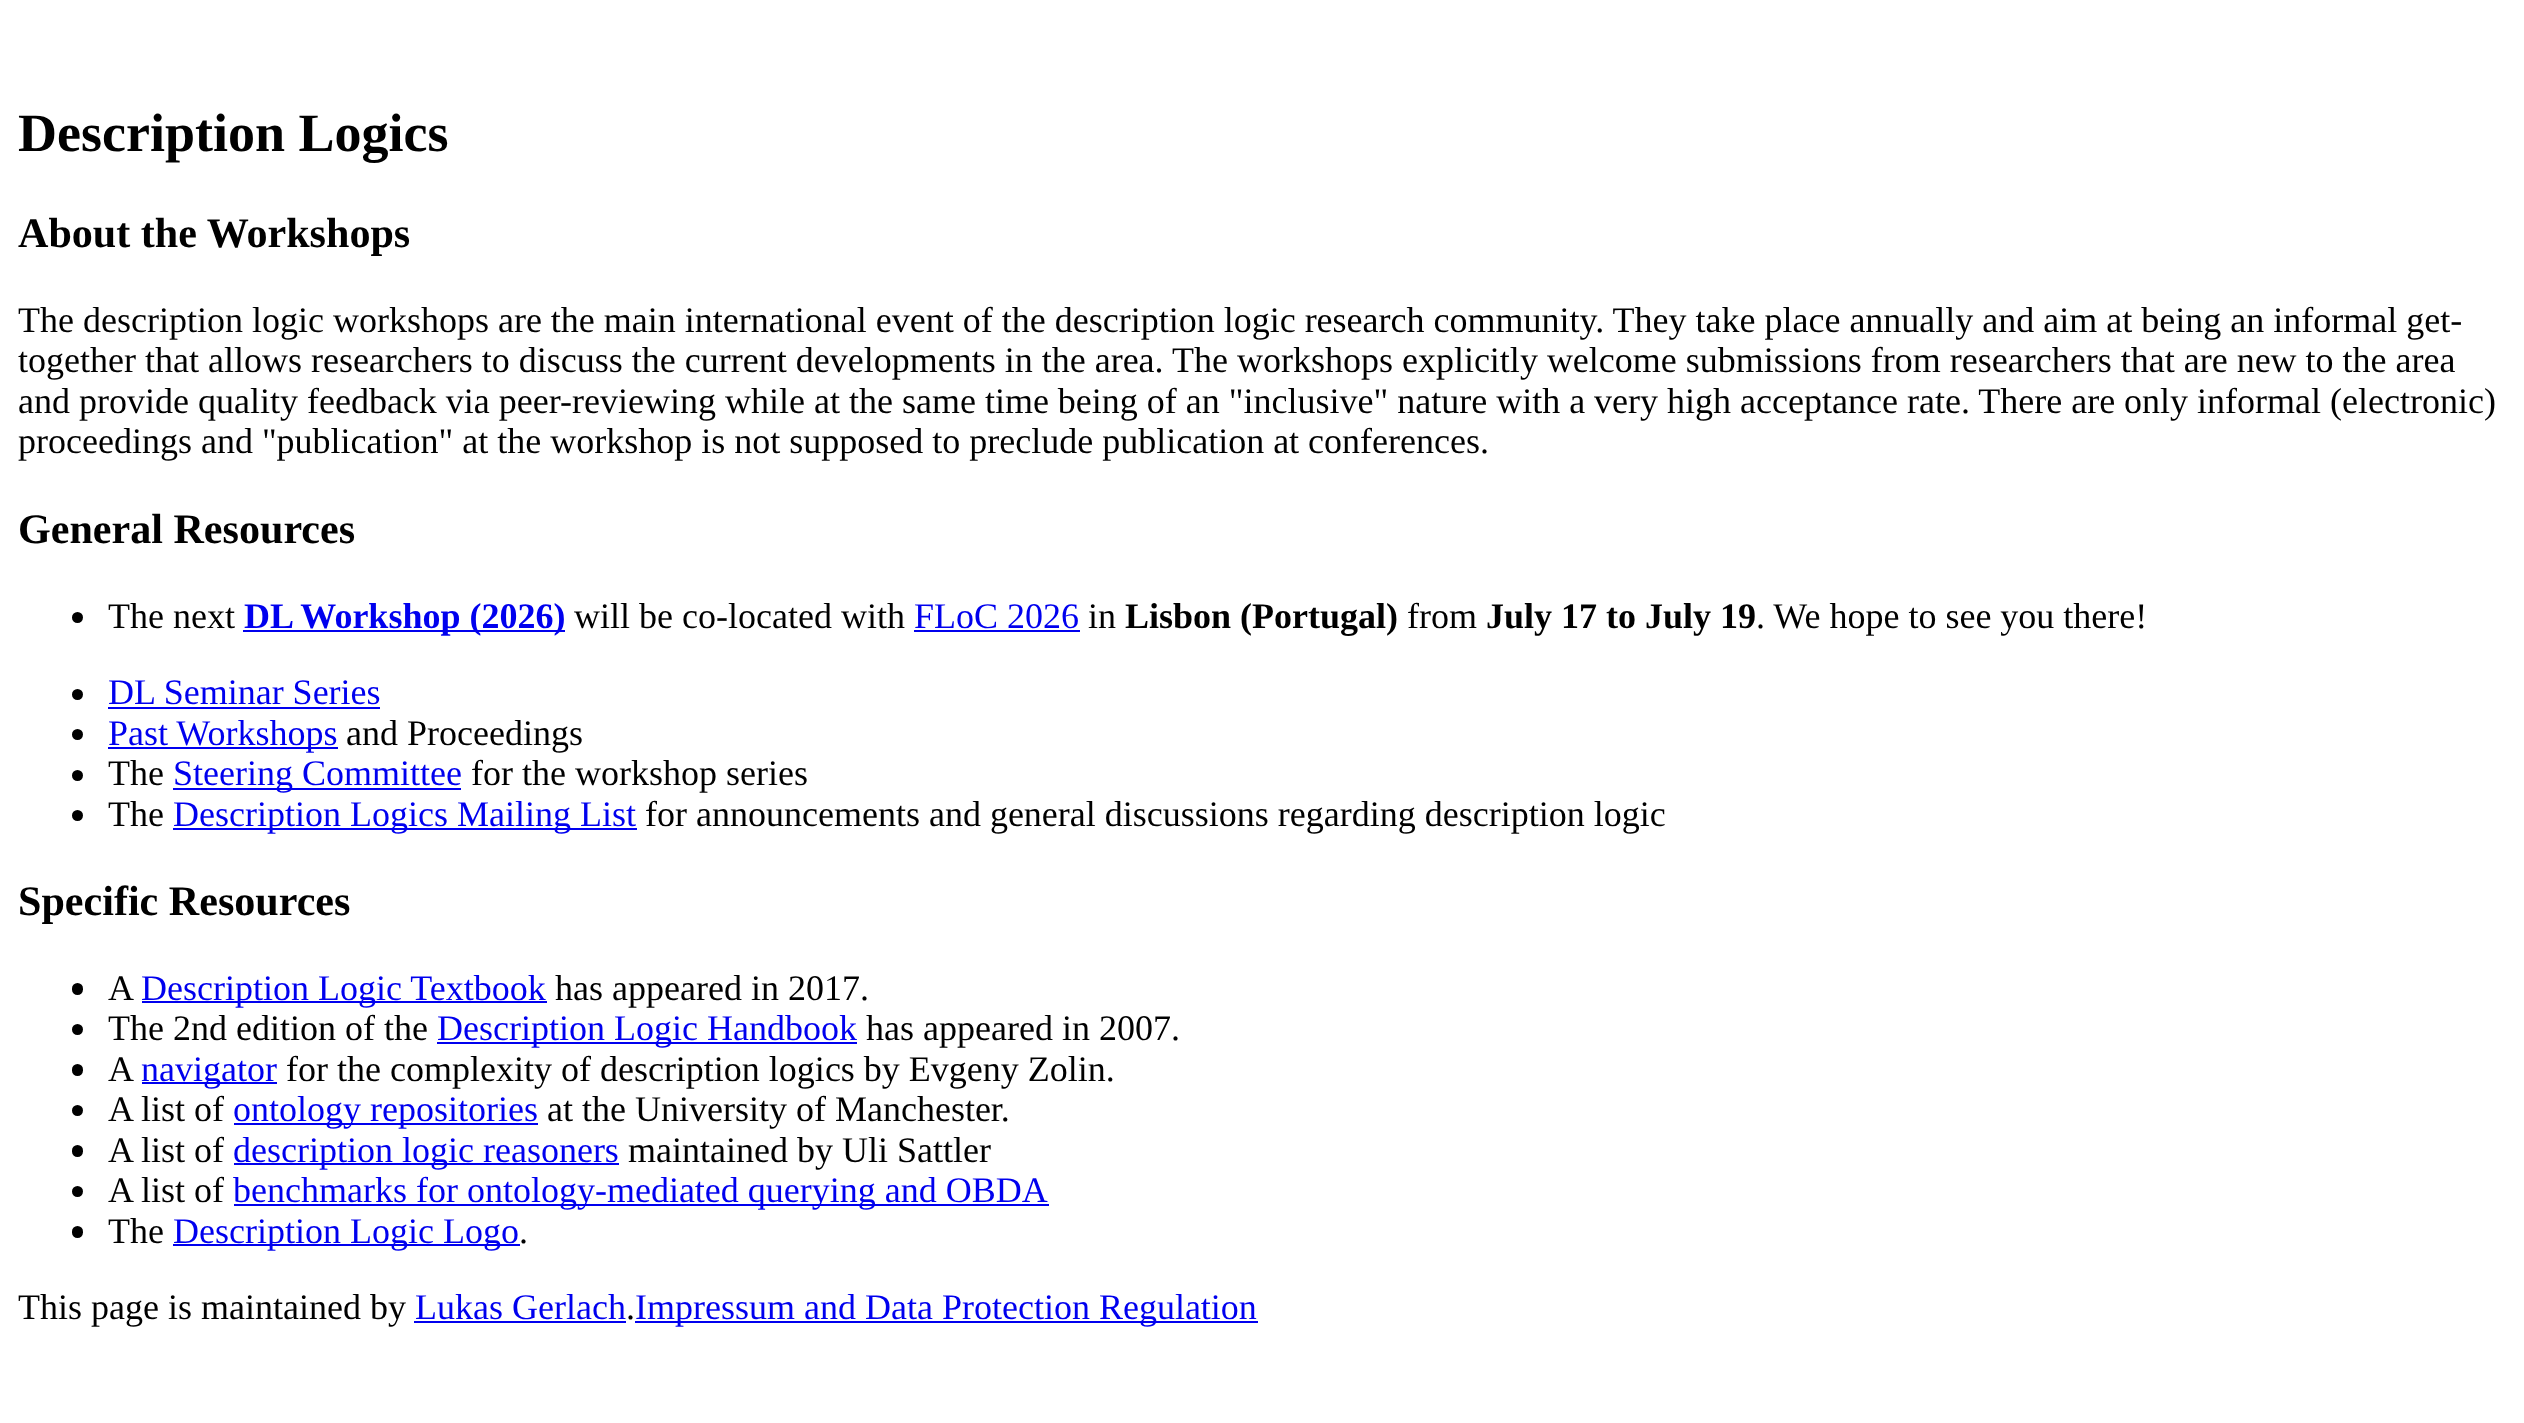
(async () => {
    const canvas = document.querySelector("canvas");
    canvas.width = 2524;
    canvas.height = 1423;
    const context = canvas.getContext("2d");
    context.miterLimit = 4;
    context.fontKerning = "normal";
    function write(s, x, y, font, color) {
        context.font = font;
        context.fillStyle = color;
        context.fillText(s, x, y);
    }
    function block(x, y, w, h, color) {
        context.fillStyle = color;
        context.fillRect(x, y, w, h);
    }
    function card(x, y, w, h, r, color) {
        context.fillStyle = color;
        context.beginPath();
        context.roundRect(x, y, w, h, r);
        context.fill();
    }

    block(0, 0, 2524, 1423, "rgb(255, 255, 255)");
    write("Description Logics", 18, 151, "bold 54px Liberation Serif", "rgb(0, 0, 0)");
    write("About the Workshops", 18, 247, "bold 42.1px Liberation Serif", "rgb(0, 0, 0)");
    write("The description logic workshops are the main international event of the description logic research community. They take place annually and aim at being an informal get-", 18, 332, "36px Liberation Serif", "rgb(0, 0, 0)");
    write("together that allows researchers to discuss the current developments in the area. The workshops explicitly welcome submissions from researchers that are new to the area", 18, 372, "36px Liberation Serif", "rgb(0, 0, 0)");
    write("and provide quality feedback via peer-reviewing while at the same time being of an \"inclusive\" nature with a very high acceptance rate. There are only informal (electronic)", 18, 413, "36px Liberation Serif", "rgb(0, 0, 0)");
    write("proceedings and \"publication\" at the workshop is not supposed to preclude publication at conferences.", 18, 453, "36px Liberation Serif", "rgb(0, 0, 0)");
    write("General Resources", 18, 543, "bold 42.1px Liberation Serif", "rgb(0, 0, 0)");
    context.beginPath();
    context.arc(77.5, 617.5, 5.5, 0, Math.PI * 2);
    context.fill();
    write("The next", 108, 628, "36px Liberation Serif", "rgb(0, 0, 0)");
    block(243, 630, 322, 2, "rgb(0, 0, 238)");
    write("DL Workshop (2026)", 244, 628, "bold 36px Liberation Serif", "rgb(0, 0, 238)");
    write("will be co-located with", 574, 628, "36px Liberation Serif", "rgb(0, 0, 0)");
    write("FLoC 2026", 914, 628, "36px Liberation Serif", "rgb(0, 0, 238)");
    block(914, 630, 166, 2, "rgb(0, 0, 238)");
    write("in", 1088, 628, "36px Liberation Serif", "rgb(0, 0, 0)");
    write("Lisbon (Portugal)", 1125, 628, "bold 36px Liberation Serif", "rgb(0, 0, 0)");
    write("from", 1407, 628, "36px Liberation Serif", "rgb(0, 0, 0)");
    write("July 17 to July 19", 1486, 628, "bold 36px Liberation Serif", "rgb(0, 0, 0)");
    write(". We hope to see you there!", 1756, 628, "36px Liberation Serif", "rgb(0, 0, 0)");
    context.beginPath();
    context.arc(77.5, 694.5, 5.5, 0, Math.PI * 2);
    context.fill();
    write("DL Seminar Series", 108, 704, "36px Liberation Serif", "rgb(0, 0, 238)");
    block(108, 707, 272, 2, "rgb(0, 0, 238)");
    context.fillStyle = "rgb(0, 0, 0)";
    context.beginPath();
    context.arc(77.5, 734.5, 5.5, 0, Math.PI * 2);
    context.fill();
    block(108, 747, 230, 2, "rgb(0, 0, 238)");
    write("Past Workshops", 108, 745, "36px Liberation Serif", "rgb(0, 0, 238)");
    write("and Proceedings", 346, 745, "36px Liberation Serif", "rgb(0, 0, 0)");
    context.beginPath();
    context.arc(77.5, 775.5, 5.5, 0, Math.PI * 2);
    context.fill();
    write("The", 108, 785, "36px Liberation Serif", "rgb(0, 0, 0)");
    block(173, 788, 288, 2, "rgb(0, 0, 238)");
    write("Steering Committee", 173, 785, "36px Liberation Serif", "rgb(0, 0, 238)");
    write("for the workshop series", 471, 785, "36px Liberation Serif", "rgb(0, 0, 0)");
    context.beginPath();
    context.arc(77.5, 815.5, 5.5, 0, Math.PI * 2);
    context.fill();
    write("The", 108, 826, "36px Liberation Serif", "rgb(0, 0, 0)");
    block(173, 828, 464, 2, "rgb(0, 0, 238)");
    write("Description Logics Mailing List", 173, 826, "36px Liberation Serif", "rgb(0, 0, 238)");
    write("for announcements and general discussions regarding description logic", 645, 826, "36px Liberation Serif", "rgb(0, 0, 0)");
    write("Specific Resources", 18, 915, "bold 42.1px Liberation Serif", "rgb(0, 0, 0)");
    card(72, 983, 11, 12, 5.5, "rgb(0, 0, 0)");
    write("A", 108, 1000, "36px Liberation Serif", "rgb(0, 0, 0)");
    block(142, 1001, 405, 2, "rgb(0, 0, 238)");
    write("Description Logic Textbook", 141, 1000, "36px Liberation Serif", "rgb(0, 0, 238)");
    write("has appeared in 2017.", 555, 1000, "36px Liberation Serif", "rgb(0, 0, 0)");
    context.beginPath();
    context.arc(77.5, 1029.5, 5.5, 0, Math.PI * 2);
    context.fill();
    write("The 2nd edition of the", 108, 1040, "36px Liberation Serif", "rgb(0, 0, 0)");
    block(437, 1042, 420, 2, "rgb(0, 0, 238)");
    write("Description Logic Handbook", 437, 1040, "36px Liberation Serif", "rgb(0, 0, 238)");
    write("has appeared in 2007.", 866, 1040, "36px Liberation Serif", "rgb(0, 0, 0)");
    card(72, 1064, 11, 12, 5.5, "rgb(0, 0, 0)");
    write("A", 108, 1081, "36px Liberation Serif", "rgb(0, 0, 0)");
    block(142, 1082, 135, 2, "rgb(0, 0, 238)");
    write("navigator", 141, 1081, "36px Liberation Serif", "rgb(0, 0, 238)");
    write("for the complexity of description logics by Evgeny Zolin.", 286, 1081, "36px Liberation Serif", "rgb(0, 0, 0)");
    context.beginPath();
    context.arc(77.5, 1110.5, 5.5, 0, Math.PI * 2);
    context.fill();
    write("A list of", 108, 1121, "36px Liberation Serif", "rgb(0, 0, 0)");
    block(234, 1123, 304, 2, "rgb(0, 0, 238)");
    write("ontology repositories", 233, 1121, "36px Liberation Serif", "rgb(0, 0, 238)");
    write("at the University of Manchester.", 547, 1121, "36px Liberation Serif", "rgb(0, 0, 0)");
    card(72, 1145, 11, 12, 5.5, "rgb(0, 0, 0)");
    write("A list of", 108, 1162, "36px Liberation Serif", "rgb(0, 0, 0)");
    block(234, 1163, 385, 2, "rgb(0, 0, 238)");
    write("description logic reasoners", 233, 1162, "36px Liberation Serif", "rgb(0, 0, 238)");
    write("maintained by Uli Sattler", 628, 1162, "36px Liberation Serif", "rgb(0, 0, 0)");
    context.beginPath();
    context.arc(77.5, 1191.5, 5.5, 0, Math.PI * 2);
    context.fill();
    write("A list of", 108, 1202, "36px Liberation Serif", "rgb(0, 0, 0)");
    block(234, 1204, 815, 2, "rgb(0, 0, 238)");
    write("benchmarks for ontology-mediated querying and OBDA", 233, 1202, "36px Liberation Serif", "rgb(0, 0, 238)");
    card(72, 1226, 11, 12, 5.5, "rgb(0, 0, 0)");
    write("The", 108, 1243, "36px Liberation Serif", "rgb(0, 0, 0)");
    block(173, 1244, 347, 2, "rgb(0, 0, 238)");
    write("Description Logic Logo", 173, 1243, "36px Liberation Serif", "rgb(0, 0, 238)");
    write(".", 519, 1243, "36px Liberation Serif", "rgb(0, 0, 0)");
    write("This page is maintained by", 18, 1319, "36px Liberation Serif", "rgb(0, 0, 0)");
    write("Lukas Gerlach", 415, 1319, "36px Liberation Serif", "rgb(0, 0, 238)");
    write(".", 626, 1319, "36px Liberation Serif", "rgb(0, 0, 0)");
    block(414, 1321, 212, 2, "rgb(0, 0, 238)");
    block(635, 1321, 623, 2, "rgb(0, 0, 238)");
    write("Impressum and Data Protection Regulation", 635, 1319, "36px Liberation Serif", "rgb(0, 0, 238)");
})();
